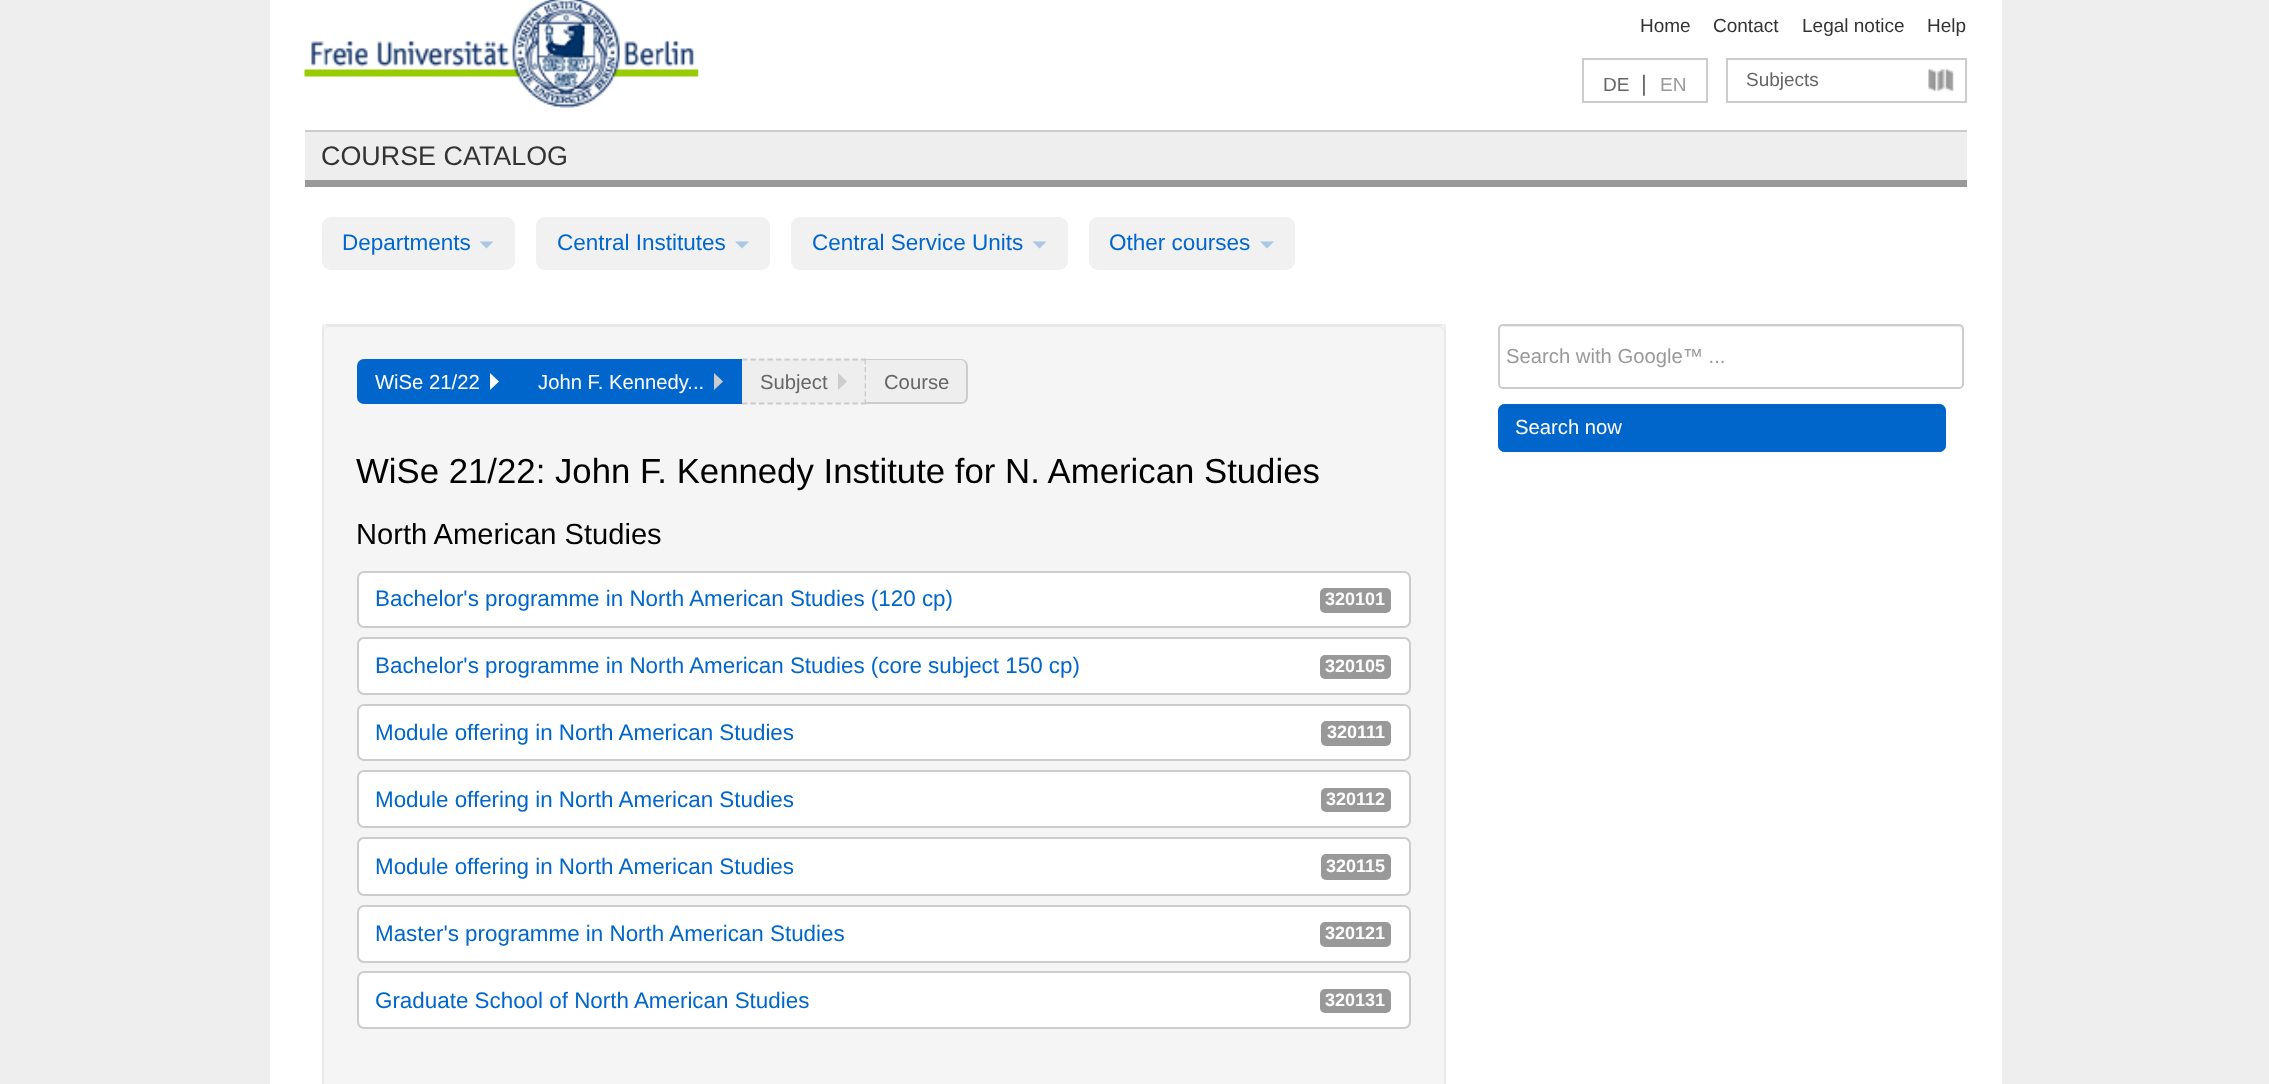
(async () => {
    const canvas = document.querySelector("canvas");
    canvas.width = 2269;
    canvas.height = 1084;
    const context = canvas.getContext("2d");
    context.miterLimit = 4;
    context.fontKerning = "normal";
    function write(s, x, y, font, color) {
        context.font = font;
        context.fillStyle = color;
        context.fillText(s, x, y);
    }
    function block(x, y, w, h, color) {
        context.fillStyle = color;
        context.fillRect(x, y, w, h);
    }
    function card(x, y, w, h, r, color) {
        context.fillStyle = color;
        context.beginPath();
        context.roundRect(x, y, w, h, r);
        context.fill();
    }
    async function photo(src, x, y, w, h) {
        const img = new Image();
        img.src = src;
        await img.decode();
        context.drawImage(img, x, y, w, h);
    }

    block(0, 0, 2269, 1084, "rgb(238, 238, 238)");
    block(270, 0, 1732, 1084, "rgb(255, 255, 255)");
    await photo("media/1.png", 304, 0, 395, 108);
    write("Home", 1640, 32, "19px Liberation Sans", "rgb(51, 51, 51)");
    write("Contact", 1713, 32, "19px Liberation Sans", "rgb(51, 51, 51)");
    write("Legal notice", 1802, 32, "19px Liberation Sans", "rgb(51, 51, 51)");
    write("Help", 1927, 32, "19px Liberation Sans", "rgb(51, 51, 51)");
    context.strokeStyle = "rgb(204, 204, 204)";
    context.lineWidth = 2;
    context.strokeRect(1583, 59, 124, 43);
    write("DE", 1603, 91, "19px Liberation Sans", "rgb(102, 102, 102)");
    write("|", 1641, 91, "22.5px Liberation Sans", "rgb(102, 102, 102)");
    write("EN", 1660, 91, "19px Liberation Sans", "rgb(153, 153, 153)");
    context.strokeRect(1727, 59, 239, 43);
    await photo("media/2.png", 1928, 68, 26, 24);
    write("Subjects", 1746, 86, "19px Liberation Sans", "rgb(102, 102, 102)");
    block(305, 132, 1662, 48, "rgb(238, 238, 238)");
    block(305, 130, 1662, 2, "rgb(204, 204, 204)");
    block(305, 180, 1662, 7, "rgb(153, 153, 153)");
    write("COURSE CATALOG", 321, 165, "26.9px Liberation Sans", "rgb(51, 51, 51)");
    card(322, 217, 193, 53, 9, "rgb(241, 241, 241)");
    write("Departments", 342, 250, "22.5px Liberation Sans", "rgb(0, 102, 204)");
    context.fillStyle = "rgb(169, 199, 230)";
    context.beginPath();
    context.moveTo(479.5, 241.5);
    context.lineTo(493.5, 241.5);
    context.lineTo(486.5, 248.5);
    context.closePath();
    context.fill();
    card(536, 217, 234, 53, 9, "rgb(241, 241, 241)");
    write("Central Institutes", 557, 250, "22.5px Liberation Sans", "rgb(0, 102, 204)");
    context.fillStyle = "rgb(169, 199, 230)";
    context.beginPath();
    context.moveTo(735, 241.5);
    context.lineTo(749, 241.5);
    context.lineTo(742, 248.5);
    context.closePath();
    context.fill();
    card(791, 217, 277, 53, 9, "rgb(241, 241, 241)");
    write("Central Service Units", 812, 250, "22.5px Liberation Sans", "rgb(0, 102, 204)");
    context.fillStyle = "rgb(169, 199, 230)";
    context.beginPath();
    context.moveTo(1032.5, 241.5);
    context.lineTo(1046.5, 241.5);
    context.lineTo(1039.5, 248.5);
    context.closePath();
    context.fill();
    card(1089, 217, 206, 53, 9, "rgb(241, 241, 241)");
    write("Other courses", 1109, 250, "22.5px Liberation Sans", "rgb(0, 102, 204)");
    context.fillStyle = "rgb(169, 199, 230)";
    context.beginPath();
    context.moveTo(1260, 241.5);
    context.lineTo(1274, 241.5);
    context.lineTo(1267, 248.5);
    context.closePath();
    context.fill();
    card(322, 324, 1124, 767, 7, "rgb(245, 245, 245)");
    context.fillStyle = "rgb(233, 233, 233)";
    context.beginPath();
    context.moveTo(329, 327);
    context.lineTo(1438, 327);
    context.bezierCurveTo(1441, 327, 1444, 330, 1444, 332);
    context.bezierCurveTo(1444, 329, 1442, 326, 1439, 326);
    context.lineTo(329, 326);
    context.bezierCurveTo(326, 326, 324, 329, 324, 332);
    context.bezierCurveTo(324, 330, 326, 327, 329, 327);
    context.closePath();
    context.fill();
    context.strokeStyle = "rgba(0, 0, 0, 0.05)";
    context.strokeRect(323, 325, 1122, 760);
    context.fillStyle = "rgb(0, 102, 204)";
    context.beginPath();
    context.roundRect(358, 360, 159, 43, [6, 0, 0, 6]);
    context.fill();
    context.strokeStyle = "rgb(0, 102, 204)";
    context.stroke();
    write("WiSe 21/22", 375, 389, "20.25px Liberation Sans", "rgb(255, 255, 255)");
    context.beginPath();
    context.moveTo(490, 390);
    context.lineTo(490, 373);
    context.lineTo(499, 381.5);
    context.closePath();
    context.fill();
    block(518, 359, 224, 45, "rgb(0, 102, 204)");
    write("John F. Kennedy...", 538, 389, "20.25px Liberation Sans", "rgb(255, 255, 255)");
    context.fillStyle = "rgb(204, 204, 204)";
    context.beginPath();
    context.moveTo(714, 390);
    context.lineTo(714, 373);
    context.lineTo(723, 381.5);
    context.closePath();
    context.fill();
    block(742, 359, 124, 45, "rgb(238, 238, 238)");
    context.beginPath();
    context.moveTo(742, 359.5);
    context.lineTo(866, 359.5);
    context.strokeStyle = "rgb(204, 204, 204)";
    context.lineWidth = 1.8;
    context.setLineDash([5.25, 3.26]);
    context.stroke();
    context.beginPath();
    context.moveTo(865.5, 359);
    context.lineTo(865.5, 404);
    context.setLineDash([5.25, 2.8]);
    context.stroke();
    context.beginPath();
    context.moveTo(742, 403.5);
    context.lineTo(866, 403.5);
    context.setLineDash([5.25, 3.26]);
    context.stroke();
    write("Subject", 760, 389, "20.25px Liberation Sans", "rgb(102, 102, 102)");
    context.fillStyle = "rgb(204, 204, 204)";
    context.beginPath();
    context.moveTo(838, 390);
    context.lineTo(838, 373);
    context.lineTo(847, 381.5);
    context.closePath();
    context.fill();
    context.fillStyle = "rgb(238, 238, 238)";
    context.beginPath();
    context.roundRect(866, 359, 102, 45, [0, 7, 7, 0]);
    context.fill();
    context.fillStyle = "rgb(204, 204, 204)";
    context.beginPath();
    context.moveTo(866, 359);
    context.lineTo(961, 359);
    context.bezierCurveTo(965, 359, 968, 362, 968, 366);
    context.lineTo(968, 397);
    context.bezierCurveTo(968, 401, 965, 404, 961, 404);
    context.lineTo(866, 404);
    context.closePath();
    context.moveTo(866, 360);
    context.lineTo(961, 360);
    context.bezierCurveTo(964, 360, 966, 363, 966, 366);
    context.lineTo(966, 397);
    context.bezierCurveTo(966, 400, 964, 402, 961, 402);
    context.lineTo(866, 402);
    context.closePath();
    context.fill("evenodd");
    write("Course", 884, 389, "20.25px Liberation Sans", "rgb(102, 102, 102)");
    write("WiSe 21/22: John F. Kennedy Institute for N. American Studies", 356, 483, "34.75px Liberation Sans", "rgb(0, 0, 0)");
    write("North American Studies", 356, 544, "29.1px Liberation Sans", "rgb(0, 0, 0)");
    context.fillStyle = "rgb(255, 255, 255)";
    context.beginPath();
    context.roundRect(358, 572, 1052, 55, 6);
    context.fill();
    context.lineWidth = 2;
    context.setLineDash([]);
    context.stroke();
    write("Bachelor's programme in North American Studies (120 cp)", 375, 606, "22.4px Liberation Sans", "rgb(0, 102, 204)");
    card(1320, 588, 71, 25, 5, "rgb(153, 153, 153)");
    write("320101", 1325, 605, "bold 18px Liberation Sans", "rgb(255, 255, 255)");
    context.beginPath();
    context.roundRect(358, 638, 1052, 56, 6);
    context.fill();
    context.stroke();
    write("Bachelor's programme in North American Studies (core subject 150 cp)", 375, 673, "22.4px Liberation Sans", "rgb(0, 102, 204)");
    card(1320, 655, 71, 24, 5, "rgb(153, 153, 153)");
    write("320105", 1325, 672, "bold 18px Liberation Sans", "rgb(255, 255, 255)");
    context.beginPath();
    context.roundRect(358, 705, 1052, 55, 6);
    context.fill();
    context.stroke();
    write("Module offering in North American Studies", 375, 740, "22.4px Liberation Sans", "rgb(0, 102, 204)");
    card(1321, 721, 70, 25, 5, "rgb(153, 153, 153)");
    write("320111", 1327, 738, "bold 18px Liberation Sans", "rgb(255, 255, 255)");
    context.beginPath();
    context.roundRect(358, 771, 1052, 56, 6);
    context.fill();
    context.stroke();
    write("Module offering in North American Studies", 375, 807, "22.4px Liberation Sans", "rgb(0, 102, 204)");
    card(1321, 788, 70, 24, 5, "rgb(153, 153, 153)");
    write("320112", 1326, 805, "bold 18px Liberation Sans", "rgb(255, 255, 255)");
    context.beginPath();
    context.roundRect(358, 838, 1052, 57, 6);
    context.fill();
    context.stroke();
    write("Module offering in North American Studies", 375, 874, "22.4px Liberation Sans", "rgb(0, 102, 204)");
    card(1321, 854, 70, 26, 5, "rgb(153, 153, 153)");
    write("320115", 1326, 872, "bold 18px Liberation Sans", "rgb(255, 255, 255)");
    context.beginPath();
    context.roundRect(358, 906, 1052, 56, 6);
    context.fill();
    context.stroke();
    write("Master's programme in North American Studies", 375, 941, "22.4px Liberation Sans", "rgb(0, 102, 204)");
    card(1320, 922, 71, 25, 5, "rgb(153, 153, 153)");
    write("320121", 1325, 939, "bold 18px Liberation Sans", "rgb(255, 255, 255)");
    context.beginPath();
    context.roundRect(358, 972, 1052, 56, 6);
    context.fill();
    context.stroke();
    write("Graduate School of North American Studies", 375, 1008, "22.4px Liberation Sans", "rgb(0, 102, 204)");
    card(1320, 989, 71, 24, 5, "rgb(153, 153, 153)");
    write("320131", 1325, 1006, "bold 18px Liberation Sans", "rgb(255, 255, 255)");
    context.fillStyle = "rgb(236, 236, 236)";
    context.beginPath();
    context.moveTo(1503, 327);
    context.lineTo(1958, 327);
    context.bezierCurveTo(1960, 327, 1962, 329, 1962, 331);
    context.bezierCurveTo(1962, 328, 1961, 326, 1958, 326);
    context.lineTo(1504, 326);
    context.lineTo(1502, 327);
    context.lineTo(1501, 328);
    context.lineTo(1500, 331);
    context.bezierCurveTo(1500, 329, 1501, 327, 1503, 327);
    context.closePath();
    context.fill();
    context.beginPath();
    context.roundRect(1499, 325, 464, 63, 4);
    context.stroke();
    write("Search with Google™ ...", 1506, 363, "20.25px Liberation Sans", "rgb(153, 153, 153)");
    card(1498, 404, 448, 48, 7, "rgb(0, 102, 204)");
    context.fillStyle = "rgb(0, 94, 189)";
    context.beginPath();
    context.moveTo(1505, 408);
    context.lineTo(1939, 408);
    context.bezierCurveTo(1942, 408, 1944, 410, 1944, 413);
    context.bezierCurveTo(1944, 410, 1943, 406, 1939, 406);
    context.lineTo(1505, 406);
    context.bezierCurveTo(1501, 406, 1500, 410, 1500, 413);
    context.bezierCurveTo(1500, 410, 1502, 408, 1505, 408);
    context.closePath();
    context.fill();
    context.beginPath();
    context.roundRect(1499, 405, 446, 46, 6);
    context.strokeStyle = "rgb(0, 102, 204)";
    context.stroke();
    write("Search now", 1515, 434, "20.25px Liberation Sans", "rgb(255, 255, 255)");
})();
